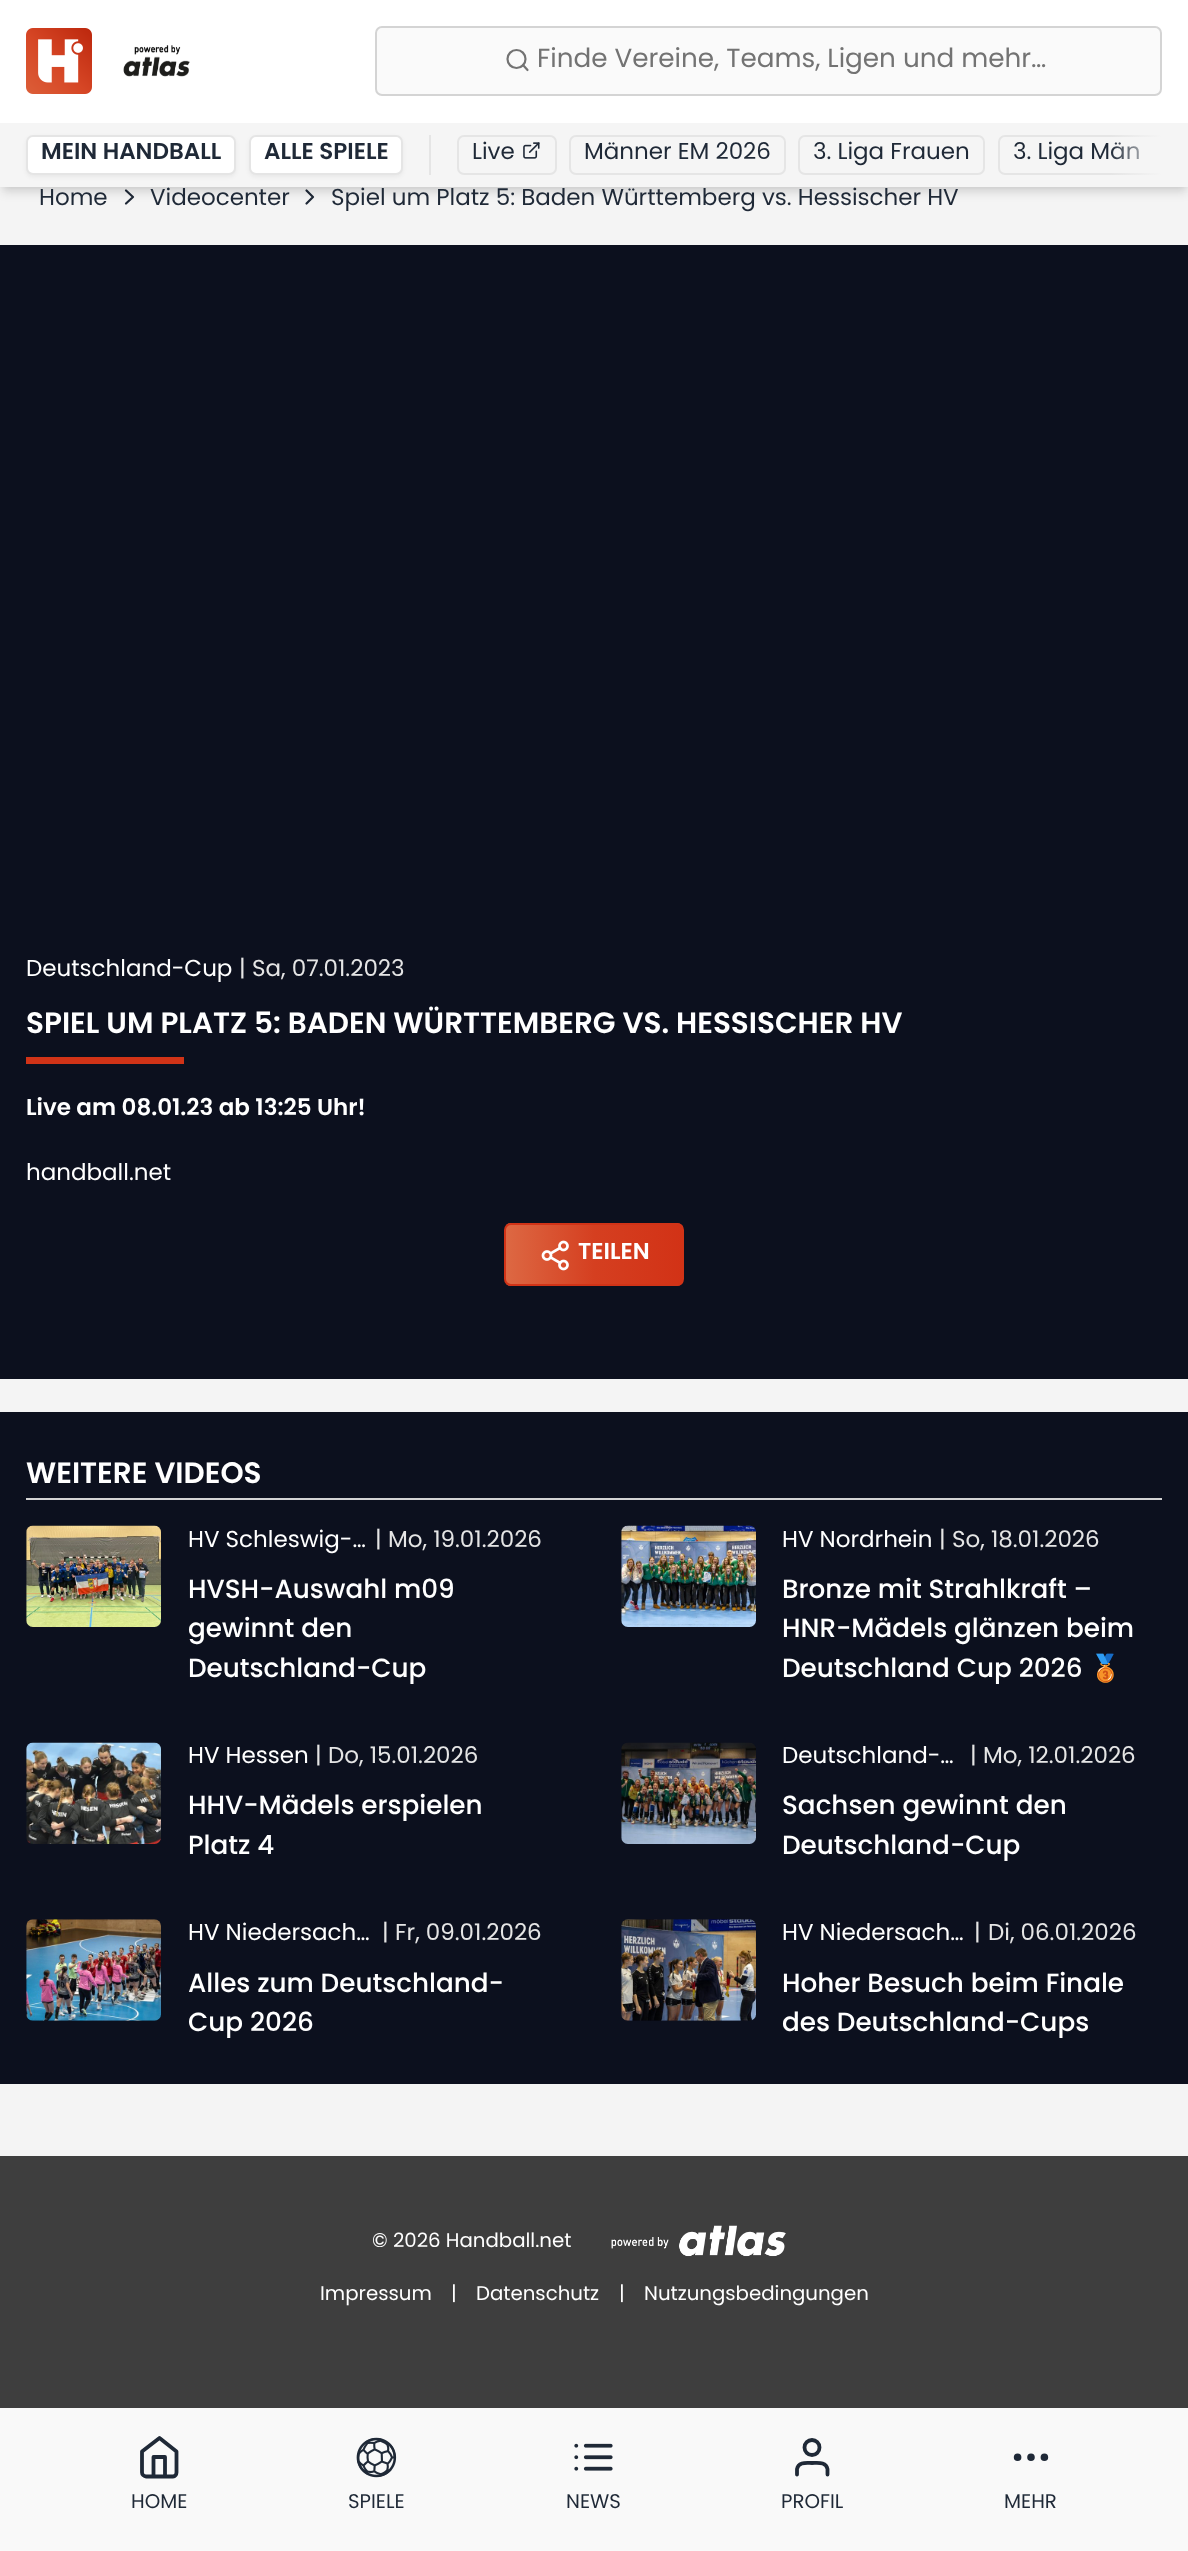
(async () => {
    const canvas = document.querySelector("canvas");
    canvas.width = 1188;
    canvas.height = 2551;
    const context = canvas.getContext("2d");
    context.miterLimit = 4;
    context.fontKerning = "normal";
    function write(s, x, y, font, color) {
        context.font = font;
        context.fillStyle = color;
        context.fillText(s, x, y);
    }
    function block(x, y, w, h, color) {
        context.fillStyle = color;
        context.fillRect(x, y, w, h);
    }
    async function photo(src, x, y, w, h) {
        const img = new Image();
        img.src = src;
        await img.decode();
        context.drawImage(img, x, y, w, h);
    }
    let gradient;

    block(0, 0, 1188, 2551, "rgb(244, 244, 244)");
    context.beginPath();
    context.moveTo(126, 203.5);
    context.lineTo(133, 197);
    context.lineTo(126, 190.5);
    context.strokeStyle = "rgb(31, 41, 55)";
    context.lineWidth = 2.2;
    context.lineCap = "round";
    context.lineJoin = "round";
    context.stroke();
    context.beginPath();
    context.moveTo(306.5, 203.5);
    context.lineTo(313, 197);
    context.lineTo(306.5, 190.5);
    context.stroke();
    context.fillStyle = "rgba(0, 0, 0, 0.1)";
    context.filter = "blur(3.5px)";
    context.beginPath();
    context.rect(4, 7, 1181, 180);
    context.fill();
    context.filter = "none";
    context.filter = "blur(5px)";
    context.beginPath();
    context.rect(2, 9, 1185, 184);
    context.fill();
    context.filter = "none";
    block(0, 0, 1188, 123, "rgb(255, 255, 255)");
    await photo("media/1.png", 26, 28, 66, 66);
    await photo("media/2.png", 123, 45, 67, 32);
    context.fillStyle = "rgb(250, 250, 250)";
    context.beginPath();
    context.roundRect(376, 27, 785, 68, 6);
    context.fill();
    context.strokeStyle = "rgb(212, 212, 212)";
    context.lineWidth = 2;
    context.lineJoin = "miter";
    context.stroke();
    context.beginPath();
    context.arc(516.5, 59, 9, 0, Math.PI * 2);
    context.strokeStyle = "rgb(115, 115, 115)";
    context.lineWidth = 2.2;
    context.stroke();
    context.beginPath();
    context.moveTo(527.5, 70);
    context.lineTo(523, 65);
    context.lineJoin = "round";
    context.stroke();
    write("Finde Vereine, Teams, Ligen und mehr…", 537, 67, "26.25px Poppins", "rgb(115, 115, 115)");
    block(0, 123, 1162, 64, "rgb(245, 245, 245)");
    block(429, 135, 2, 40, "rgb(229, 229, 229)");
    context.fillStyle = "rgba(0, 0, 0, 0.05)";
    context.filter = "blur(2px)";
    context.beginPath();
    context.roundRect(26, 137, 210, 40, 7);
    context.fill();
    context.filter = "none";
    context.fillStyle = "rgb(255, 255, 255)";
    context.beginPath();
    context.roundRect(27, 136, 208, 38, 6);
    context.fill();
    context.strokeStyle = "rgb(229, 229, 229)";
    context.lineWidth = 2;
    context.lineJoin = "miter";
    context.stroke();
    write("MEIN HANDBALL", 41, 159, "600 23px Poppins", "rgb(31, 41, 55)");
    context.fillStyle = "rgba(0, 0, 0, 0.05)";
    context.filter = "blur(2px)";
    context.beginPath();
    context.roundRect(249, 137, 154, 40, 7);
    context.fill();
    context.filter = "none";
    context.fillStyle = "rgb(255, 255, 255)";
    context.beginPath();
    context.roundRect(250, 136, 152, 38, 6);
    context.fill();
    context.stroke();
    write("ALLE SPIELE", 264, 159, "600 23px Poppins", "rgb(31, 41, 55)");
    context.beginPath();
    context.roundRect(458, 136, 98, 38, 6);
    context.stroke();
    write("Live", 472, 159, "23px Poppins", "rgb(31, 41, 55)");
    await photo("media/3.png", 523, 142, 17, 17);
    context.beginPath();
    context.roundRect(570, 136, 215, 38, 6);
    context.stroke();
    write("Männer EM 2026", 584, 159, "23px Poppins", "rgb(31, 41, 55)");
    context.beginPath();
    context.roundRect(799, 136, 185, 38, 6);
    context.stroke();
    write("3. Liga Frauen", 813, 159, "23px Poppins", "rgb(31, 41, 55)");
    context.beginPath();
    context.roundRect(999, 136, 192, 38, 6);
    context.stroke();
    write("3. Liga Män", 1013, 159, "23px Poppins", "rgb(31, 41, 55)");
    gradient = context.createLinearGradient(1110, 155, 1162, 155);
    gradient.addColorStop(0, "rgba(245, 245, 245, 0)");
    gradient.addColorStop(1, "rgb(245, 245, 245)");
    context.fillStyle = gradient;
    context.fillRect(1111, 135, 51, 40);
    block(1162, 123, 26, 64, "rgb(245, 245, 245)");
    write("Home", 39, 205, "23px Poppins", "rgb(31, 41, 55)");
    write("Videocenter", 150, 205, "23px Poppins", "rgb(31, 41, 55)");
    write("Spiel um Platz 5: Baden Württemberg vs. Hessischer HV", 331, 205, "23px Poppins", "rgb(31, 41, 55)");
    block(0, 245, 1188, 1134, "rgb(12, 16, 30)");
    write("Deutschland-Cup", 26, 976, "23px Poppins", "rgb(255, 255, 255)");
    write("|", 239, 976, "23px Poppins", "rgb(229, 229, 229)");
    write("Sa, 07.01.2023", 252, 976, "23px Poppins", "rgb(229, 229, 229)");
    write("SPIEL UM PLATZ 5: BADEN WÜRTTEMBERG VS. HESSISCHER HV", 26, 1033, "600 29.5px Poppins", "rgb(255, 255, 255)");
    block(26, 1057, 158, 7, "rgb(209, 51, 23)");
    write("Live am 08.01.23 ab 13:25 Uhr!", 26, 1115, "600 23px Poppins", "rgb(255, 255, 255)");
    write("handball.net", 26, 1180, "23px Poppins", "rgb(255, 255, 255)");
    context.save();
    context.beginPath();
    context.roundRect(504, 1223, 180, 63, 7);
    context.clip();
    gradient = context.createLinearGradient(506, 1255, 683, 1255);
    gradient.addColorStop(0, "rgb(221, 104, 67)");
    gradient.addColorStop(0.5, "rgb(213, 63, 32)");
    gradient.addColorStop(1, "rgb(210, 50, 22)");
    context.fillStyle = gradient;
    context.fillRect(506, 1223, 177, 63);
    context.restore();
    context.beginPath();
    context.roundRect(505, 1224, 178, 61, 6);
    context.strokeStyle = "rgb(209, 51, 23)";
    context.stroke();
    await photo("media/4.png", 541, 1240, 28, 31);
    write("TEILEN", 578, 1259, "600 23px Poppins", "rgb(255, 255, 255)");
    block(0, 1412, 1188, 672, "rgb(12, 16, 30)");
    block(26, 1498, 1136, 2, "rgb(212, 212, 212)");
    write("WEITERE VIDEOS", 26, 1483, "600 29.5px Poppins", "rgb(255, 255, 255)");
    await photo("media/5.png", 26, 1525, 135, 102);
    write("HV Schleswig-…", 188, 1547, "23px Poppins", "rgb(255, 255, 255)");
    write("|", 375, 1547, "23px Poppins", "rgb(229, 229, 229)");
    write("Mo, 19.01.2026", 388, 1547, "23px Poppins", "rgb(229, 229, 229)");
    write("HVSH-Auswahl m09", 188, 1598, "500 26.25px Poppins", "rgb(255, 255, 255)");
    write("gewinnt den", 188, 1637, "500 26.25px Poppins", "rgb(255, 255, 255)");
    write("Deutschland-Cup", 188, 1677, "500 26.25px Poppins", "rgb(255, 255, 255)");
    await photo("media/6.png", 621, 1525, 135, 102);
    write("HV Nordrhein", 782, 1547, "23px Poppins", "rgb(255, 255, 255)");
    write("|", 939, 1547, "23px Poppins", "rgb(229, 229, 229)");
    write("So, 18.01.2026", 952, 1547, "23px Poppins", "rgb(229, 229, 229)");
    write("Bronze mit Strahlkraft –", 782, 1598, "500 26.25px Poppins", "rgb(255, 255, 255)");
    write("HNR-Mädels glänzen beim", 782, 1637, "500 26.25px Poppins", "rgb(255, 255, 255)");
    write("Deutschland Cup 2026", 782, 1677, "500 26.25px Poppins", "rgb(255, 255, 255)");
    write("🥉", 1089, 1677, "26.25px Noto Color Emoji", "rgb(255, 255, 255)");
    await photo("media/7.png", 26, 1742, 135, 102);
    write("HV Hessen", 188, 1763, "23px Poppins", "rgb(255, 255, 255)");
    write("|", 315, 1763, "23px Poppins", "rgb(229, 229, 229)");
    write("Do, 15.01.2026", 328, 1763, "23px Poppins", "rgb(229, 229, 229)");
    write("HHV-Mädels erspielen", 188, 1814, "500 26.25px Poppins", "rgb(255, 255, 255)");
    write("Platz 4", 188, 1854, "500 26.25px Poppins", "rgb(255, 255, 255)");
    await photo("media/8.png", 621, 1742, 135, 102);
    write("Deutschland-…", 782, 1763, "23px Poppins", "rgb(255, 255, 255)");
    write("|", 970, 1763, "23px Poppins", "rgb(229, 229, 229)");
    write("Mo, 12.01.2026", 983, 1763, "23px Poppins", "rgb(229, 229, 229)");
    write("Sachsen gewinnt den", 782, 1814, "500 26.25px Poppins", "rgb(255, 255, 255)");
    write("Deutschland-Cup", 782, 1854, "500 26.25px Poppins", "rgb(255, 255, 255)");
    await photo("media/9.png", 26, 1919, 135, 102);
    write("HV Niedersach…", 188, 1940, "23px Poppins", "rgb(255, 255, 255)");
    write("|", 382, 1940, "23px Poppins", "rgb(229, 229, 229)");
    write("Fr, 09.01.2026", 395, 1940, "23px Poppins", "rgb(229, 229, 229)");
    write("Alles zum Deutschland-", 188, 1992, "500 26.25px Poppins", "rgb(255, 255, 255)");
    write("Cup 2026", 188, 2031, "500 26.25px Poppins", "rgb(255, 255, 255)");
    await photo("media/10.png", 621, 1919, 135, 102);
    write("HV Niedersach…", 782, 1940, "23px Poppins", "rgb(255, 255, 255)");
    write("|", 974, 1940, "23px Poppins", "rgb(229, 229, 229)");
    write("Di, 06.01.2026", 988, 1940, "23px Poppins", "rgb(229, 229, 229)");
    write("Hoher Besuch beim Finale", 782, 1992, "500 26.25px Poppins", "rgb(255, 255, 255)");
    write("des Deutschland-Cups", 782, 2031, "500 26.25px Poppins", "rgb(255, 255, 255)");
    block(0, 2156, 1188, 395, "rgb(62, 62, 62)");
    write("© 2026 Handball.net", 372, 2247, "19.75px Poppins", "rgb(255, 255, 255)");
    await photo("media/11.png", 611, 2225, 175, 32);
    write("Impressum", 320, 2300, "19.75px Poppins", "rgb(255, 255, 255)");
    write("|", 451, 2300, "19.75px Poppins", "rgb(255, 255, 255)");
    write("Datenschutz", 476, 2300, "19.75px Poppins", "rgb(255, 255, 255)");
    write("|", 619, 2300, "19.75px Poppins", "rgb(255, 255, 255)");
    write("Nutzungsbedingungen", 644, 2300, "19.75px Poppins", "rgb(255, 255, 255)");
    block(0, 2408, 1188, 143, "rgba(255, 255, 255, 0.97)");
    context.beginPath();
    context.moveTo(142, 2451.5);
    context.lineTo(159.5, 2438);
    context.lineTo(176.5, 2451.5);
    context.lineTo(176.5, 2472.5);
    context.bezierCurveTo(176.5, 2474.5, 175, 2476.5, 173, 2476.5);
    context.lineTo(146, 2476.5);
    context.bezierCurveTo(144, 2476.5, 142, 2474.5, 142, 2472.5);
    context.closePath();
    context.moveTo(153.5, 2476.5);
    context.lineTo(153.5, 2457);
    context.lineTo(165, 2457);
    context.lineTo(165, 2476.5);
    context.strokeStyle = "rgb(31, 41, 55)";
    context.lineWidth = 3.8;
    context.lineJoin = "round";
    context.stroke();
    write("HOME", 131, 2508, "19.75px Poppins", "rgb(31, 41, 55)");
    await photo("media/12.png", 356, 2437, 41, 41);
    write("SPIELE", 348, 2508, "19.75px Poppins", "rgb(31, 41, 55)");
    await photo("media/13.png", 574, 2443, 39, 28);
    write("NEWS", 566, 2508, "19.75px Poppins", "rgb(31, 41, 55)");
    context.beginPath();
    context.moveTo(827.5, 2474.5);
    context.lineTo(827.5, 2469);
    context.bezierCurveTo(826, 2461.5, 818, 2463, 812, 2463);
    context.bezierCurveTo(806.5, 2463, 798.5, 2461.5, 797, 2469);
    context.lineTo(797, 2474.5);
    context.stroke();
    context.beginPath();
    context.arc(812, 2447.5, 7.5, 0, Math.PI * 2);
    context.stroke();
    write("PROFIL", 781, 2508, "19.75px Poppins", "rgb(31, 41, 55)");
    context.beginPath();
    context.arc(1031, 2457.2, 1.9, 0, Math.PI * 2);
    context.stroke();
    context.beginPath();
    context.arc(1044.4, 2457.2, 1.9, 0, Math.PI * 2);
    context.stroke();
    context.beginPath();
    context.arc(1017.6, 2457.2, 1.9, 0, Math.PI * 2);
    context.stroke();
    write("MEHR", 1004, 2508, "19.75px Poppins", "rgb(31, 41, 55)");
})();
